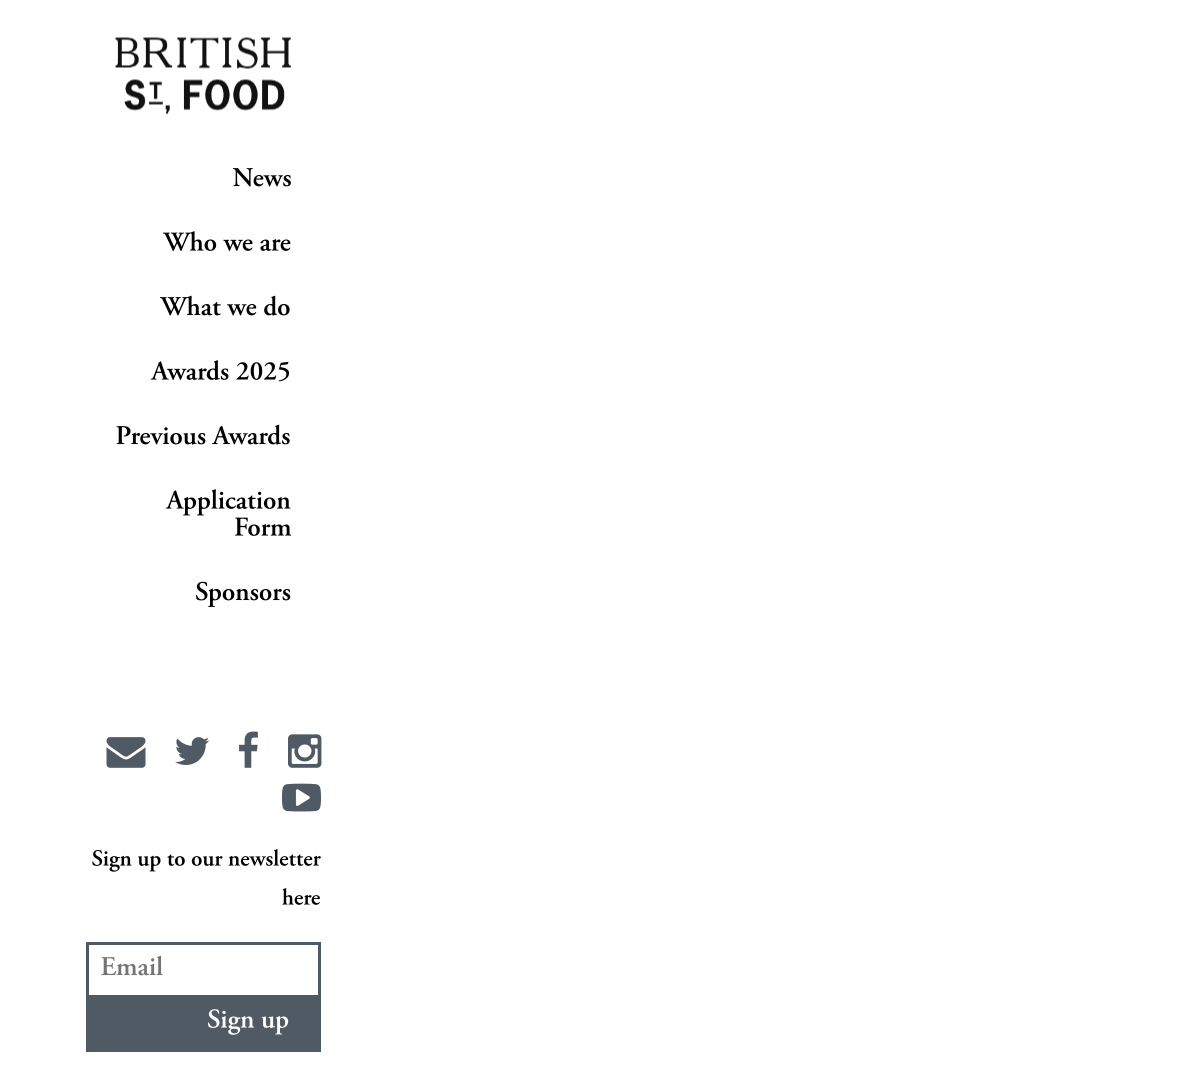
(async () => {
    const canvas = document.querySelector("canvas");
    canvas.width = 1204;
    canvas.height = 1088;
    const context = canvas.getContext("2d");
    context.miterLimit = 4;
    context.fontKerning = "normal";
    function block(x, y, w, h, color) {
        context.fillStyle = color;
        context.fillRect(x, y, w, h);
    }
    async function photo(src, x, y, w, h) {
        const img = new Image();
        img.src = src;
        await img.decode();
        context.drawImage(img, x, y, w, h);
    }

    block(0, 0, 1204, 1088, "rgb(255, 255, 255)");
    await photo("media/1.png", 115, 37, 176, 78);
    await photo("media/2.png", 232, 168, 59, 19);
    await photo("media/3.png", 162, 231, 129, 20);
    await photo("media/4.png", 159, 295, 131, 21);
    await photo("media/5.png", 150, 360, 140, 22);
    await photo("media/6.png", 116, 424, 174, 21);
    await photo("media/7.png", 165, 489, 126, 27);
    await photo("media/8.png", 235, 517, 57, 19);
    await photo("media/9.png", 196, 581, 95, 26);
    await photo("media/10.png", 106, 737, 40, 31);
    await photo("media/11.png", 175, 737, 35, 28);
    await photo("media/12.png", 239, 731, 19, 37);
    await photo("media/13.png", 288, 734, 34, 34);
    await photo("media/14.png", 282, 783, 39, 29);
    await photo("media/15.png", 92, 849, 229, 23);
    await photo("media/16.png", 282, 888, 38, 17);
    context.strokeStyle = "rgb(80, 90, 100)";
    context.lineWidth = 3;
    context.strokeRect(87.5, 943.5, 232, 107);
    await photo("media/17.png", 101, 955, 62, 21);
    block(89, 995, 229, 54, "rgb(80, 90, 100)");
    await photo("media/18.png", 208, 1009, 81, 26);
})();
